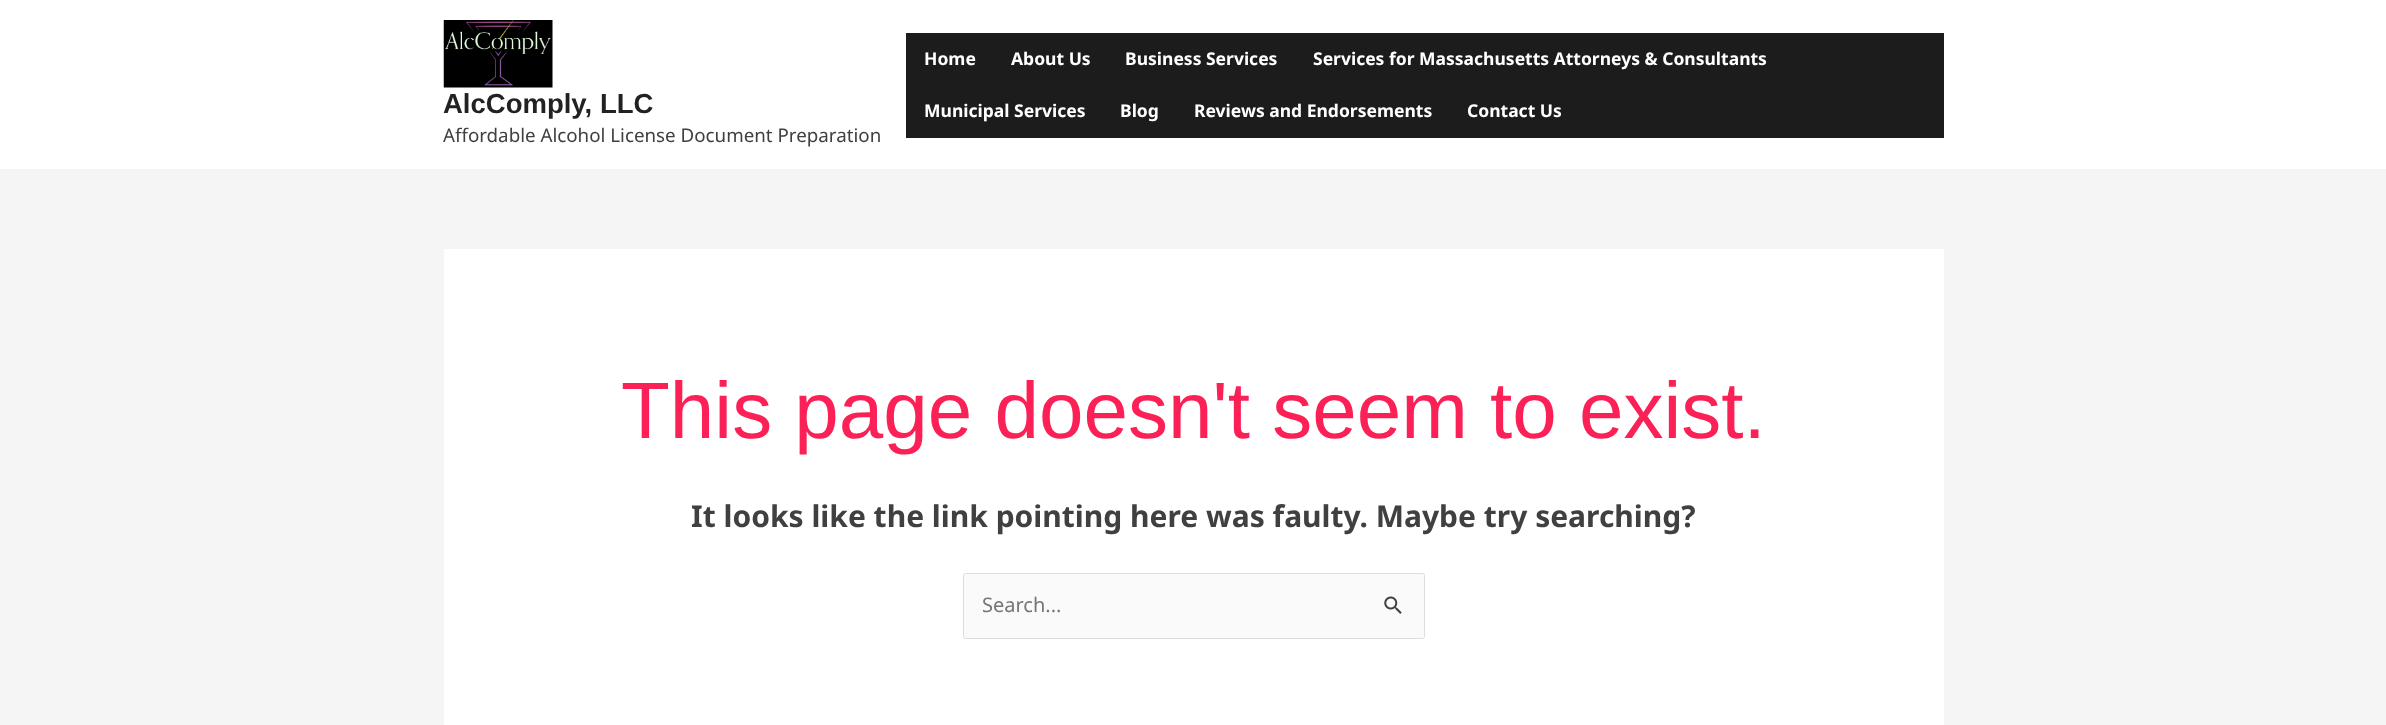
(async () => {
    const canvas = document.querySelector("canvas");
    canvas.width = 2386;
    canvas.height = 725;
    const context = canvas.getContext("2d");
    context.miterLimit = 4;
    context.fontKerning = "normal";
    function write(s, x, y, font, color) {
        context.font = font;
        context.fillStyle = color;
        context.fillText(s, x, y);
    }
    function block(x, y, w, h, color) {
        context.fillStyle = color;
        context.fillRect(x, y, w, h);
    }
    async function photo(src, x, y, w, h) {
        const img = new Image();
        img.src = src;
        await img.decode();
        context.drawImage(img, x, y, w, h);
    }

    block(0, 0, 2386, 725, "rgb(245, 245, 245)");
    block(0, 0, 2386, 169, "rgb(255, 255, 255)");
    await photo("media/1.png", 443, 20, 110, 68);
    write("AlcComply, LLC", 443, 113, "bold 27.5px Liberation Sans", "rgb(34, 34, 34)");
    write("Affordable Alcohol License Document Preparation", 443, 142, "18.75px Noto Sans", "rgb(64, 64, 64)");
    block(906, 33, 1038, 105, "rgb(28, 28, 28)");
    write("Home", 924, 65, "bold 17.5px Noto Sans", "rgb(255, 255, 255)");
    write("About Us", 1011, 65, "bold 17.5px Noto Sans", "rgb(255, 255, 255)");
    write("Business Services", 1125, 65, "bold 17.5px Noto Sans", "rgb(255, 255, 255)");
    write("Services for Massachusetts Attorneys & Consultants", 1313, 65, "bold 17.5px Noto Sans", "rgb(255, 255, 255)");
    write("Municipal Services", 924, 117, "bold 17.5px Noto Sans", "rgb(255, 255, 255)");
    write("Blog", 1120, 117, "bold 17.5px Noto Sans", "rgb(255, 255, 255)");
    write("Reviews and Endorsements", 1194, 117, "bold 17.5px Noto Sans", "rgb(255, 255, 255)");
    write("Contact Us", 1467, 117, "bold 17.5px Noto Sans", "rgb(255, 255, 255)");
    block(444, 249, 1500, 476, "rgb(255, 255, 255)");
    write("This page doesn't seem to exist.", 621, 438, "80px Liberation Sans", "rgb(251, 32, 86)");
    write("It looks like the link pointing here was faulty. Maybe try searching?", 691, 527, "bold 30px Noto Sans", "rgb(64, 64, 64)");
    context.fillStyle = "rgb(250, 250, 250)";
    context.beginPath();
    context.roundRect(963.5, 573.5, 461, 65, 2);
    context.fill();
    context.strokeStyle = "rgb(221, 221, 221)";
    context.stroke();
    write("Search...", 982, 612, "20px Noto Sans", "rgb(117, 117, 117)");
    await photo("media/2.png", 1384, 596, 18, 18);
})();
